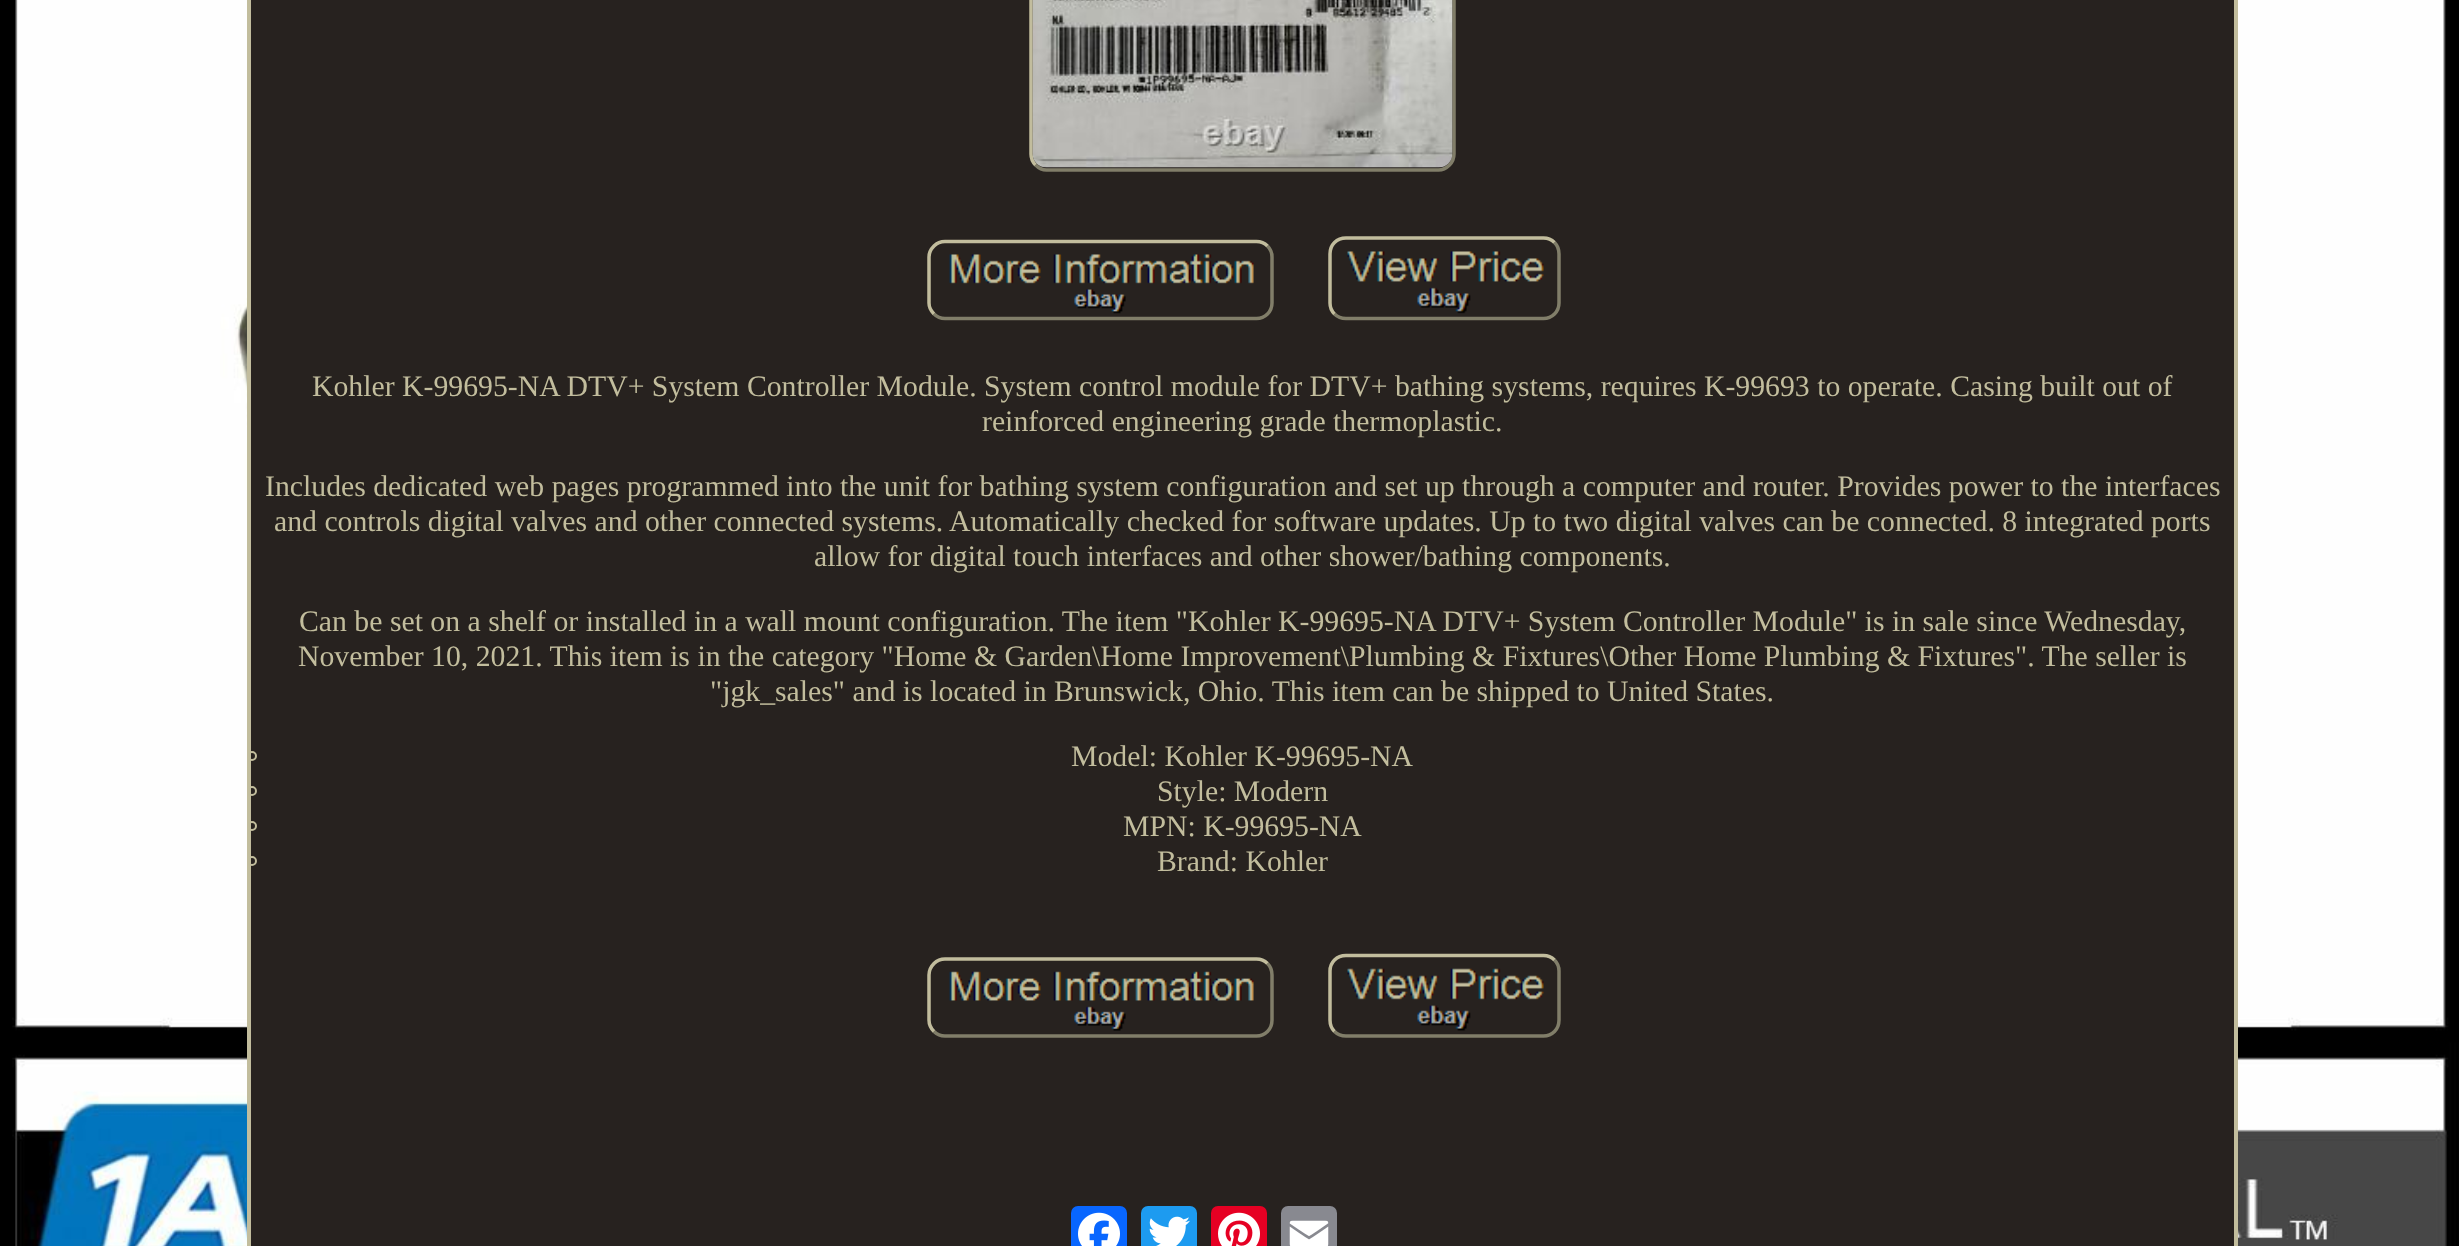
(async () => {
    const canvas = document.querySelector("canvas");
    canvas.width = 2459;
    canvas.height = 1246;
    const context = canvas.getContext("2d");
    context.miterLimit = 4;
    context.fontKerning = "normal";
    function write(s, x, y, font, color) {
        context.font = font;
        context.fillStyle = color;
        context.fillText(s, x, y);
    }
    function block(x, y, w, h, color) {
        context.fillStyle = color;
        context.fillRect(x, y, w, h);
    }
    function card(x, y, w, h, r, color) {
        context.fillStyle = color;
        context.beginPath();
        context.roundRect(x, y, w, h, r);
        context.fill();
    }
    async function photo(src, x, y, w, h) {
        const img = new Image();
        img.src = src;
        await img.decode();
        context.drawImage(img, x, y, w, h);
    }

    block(0, 0, 2459, 1246, "rgb(255, 255, 255)");
    await photo("media/1.png", 0, 0, 2459, 1246);
    context.fillStyle = "rgb(39, 34, 31)";
    context.beginPath();
    context.rect(249, -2, 1987, 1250);
    context.fill();
    context.strokeStyle = "rgb(194, 189, 157)";
    context.lineWidth = 4;
    context.stroke();
    context.beginPath();
    context.moveTo(1449.5, -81);
    context.bezierCurveTo(1452.5, -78, 1454, -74, 1454, -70);
    context.lineTo(1454, 154);
    context.bezierCurveTo(1454, 158, 1452.5, 162, 1449.5, 165);
    context.bezierCurveTo(1446.5, 168, 1442.5, 170, 1438.5, 170);
    context.lineTo(1046.5, 170);
    context.bezierCurveTo(1042.5, 170, 1038.5, 168, 1035.5, 165);
    context.strokeStyle = "rgb(129, 126, 105)";
    context.lineWidth = 3.5;
    context.stroke();
    context.beginPath();
    context.moveTo(1035.5, 165);
    context.bezierCurveTo(1032.5, 162, 1031, 158, 1031, 154);
    context.lineTo(1031, -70);
    context.bezierCurveTo(1031, -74, 1032.5, -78, 1035.5, -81);
    context.bezierCurveTo(1038.5, -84, 1042.5, -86, 1046.5, -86);
    context.lineTo(1438.5, -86);
    context.bezierCurveTo(1442.5, -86, 1446.5, -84, 1449.5, -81);
    context.strokeStyle = "rgb(194, 189, 157)";
    context.stroke();
    await photo("media/2.png", 1032, 0, 421, 168);
    context.beginPath();
    context.moveTo(1267.5, 246);
    context.bezierCurveTo(1270.5, 249, 1272, 253, 1272, 257);
    context.lineTo(1272, 303);
    context.bezierCurveTo(1272, 307, 1270.5, 311, 1267.5, 314);
    context.bezierCurveTo(1264.5, 317, 1260.5, 318.5, 1256.5, 318.5);
    context.lineTo(945, 318.5);
    context.bezierCurveTo(941, 318.5, 937, 317, 934, 314);
    context.strokeStyle = "rgb(129, 126, 105)";
    context.stroke();
    context.beginPath();
    context.moveTo(934, 314);
    context.bezierCurveTo(931, 311, 929, 307, 929, 303);
    context.lineTo(929, 257);
    context.bezierCurveTo(929, 253, 931, 249, 934, 246);
    context.bezierCurveTo(937, 243, 941, 241.5, 945, 241.5);
    context.lineTo(1256.5, 241.5);
    context.bezierCurveTo(1260.5, 241.5, 1264.5, 243, 1267.5, 246);
    context.strokeStyle = "rgb(194, 189, 157)";
    context.stroke();
    await photo("media/3.png", 949, 254, 305, 60);
    context.beginPath();
    context.moveTo(1554.5, 242.5);
    context.bezierCurveTo(1557.5, 245.5, 1559, 249.5, 1559, 254);
    context.lineTo(1559, 303);
    context.bezierCurveTo(1559, 307, 1557.5, 311, 1554.5, 314);
    context.bezierCurveTo(1551.5, 317, 1547.5, 318.5, 1543.5, 318.5);
    context.lineTo(1346, 318.5);
    context.bezierCurveTo(1341.5, 318.5, 1337.5, 317, 1334.5, 314);
    context.strokeStyle = "rgb(129, 126, 105)";
    context.stroke();
    context.beginPath();
    context.moveTo(1334.5, 314);
    context.bezierCurveTo(1331.5, 311, 1330, 307, 1330, 303);
    context.lineTo(1330, 254);
    context.bezierCurveTo(1330, 249.5, 1331.5, 245.5, 1334.5, 242.5);
    context.bezierCurveTo(1337.5, 239.5, 1341.5, 238, 1346, 238);
    context.lineTo(1543.5, 238);
    context.bezierCurveTo(1547.5, 238, 1551.5, 239.5, 1554.5, 242.5);
    context.strokeStyle = "rgb(194, 189, 157)";
    context.stroke();
    await photo("media/4.png", 1347, 251, 197, 63);
    write("Kohler K-99695-NA DTV+ System Controller Module. System control module for DTV+ bathing systems, requires K-99693 to operate. Casing built out of", 312, 396, "29.75px Liberation Serif", "rgb(194, 189, 157)");
    write("reinforced engineering grade thermoplastic.", 982, 431, "29.75px Liberation Serif", "rgb(194, 189, 157)");
    write("Includes dedicated web pages programmed into the unit for bathing system configuration and set up through a computer and router. Provides power to the interfaces", 265, 496, "29.75px Liberation Serif", "rgb(194, 189, 157)");
    write("and controls digital valves and other connected systems. Automatically checked for software updates. Up to two digital valves can be connected. 8 integrated ports", 274, 531, "29.75px Liberation Serif", "rgb(194, 189, 157)");
    write("allow for digital touch interfaces and other shower/bathing components.", 814, 566, "29.75px Liberation Serif", "rgb(194, 189, 157)");
    write("Can be set on a shelf or installed in a wall mount configuration. The item \"Kohler K-99695-NA DTV+ System Controller Module\" is in sale since Wednesday,", 299, 631, "29.75px Liberation Serif", "rgb(194, 189, 157)");
    write("November 10, 2021. This item is in the category \"Home & Garden\\Home Improvement\\Plumbing & Fixtures\\Other Home Plumbing & Fixtures\". The seller is", 298, 666, "29.75px Liberation Serif", "rgb(194, 189, 157)");
    write("\"jgk_sales\" and is located in Brunswick, Ohio. This item can be shipped to United States.", 710, 701, "29.75px Liberation Serif", "rgb(194, 189, 157)");
    context.beginPath();
    context.arc(252, 756, 4, 0, Math.PI * 2);
    context.lineWidth = 2;
    context.stroke();
    write("Model: Kohler K-99695-NA", 1071, 766, "29.75px Liberation Serif", "rgb(194, 189, 157)");
    context.beginPath();
    context.arc(252, 791, 4, 0, Math.PI * 2);
    context.stroke();
    write("Style: Modern", 1157, 801, "29.75px Liberation Serif", "rgb(194, 189, 157)");
    context.beginPath();
    context.arc(252, 826, 4, 0, Math.PI * 2);
    context.stroke();
    write("MPN: K-99695-NA", 1123, 836, "29.75px Liberation Serif", "rgb(194, 189, 157)");
    context.beginPath();
    context.arc(252, 861, 4, 0, Math.PI * 2);
    context.stroke();
    write("Brand: Kohler", 1157, 871, "29.75px Liberation Serif", "rgb(194, 189, 157)");
    context.beginPath();
    context.moveTo(1267.5, 963.5);
    context.bezierCurveTo(1270.5, 966.5, 1272, 970.5, 1272, 975);
    context.lineTo(1272, 1020);
    context.bezierCurveTo(1272, 1024.5, 1270.5, 1028.5, 1267.5, 1031.5);
    context.bezierCurveTo(1264.5, 1034.5, 1260.5, 1036, 1256.5, 1036);
    context.lineTo(945, 1036);
    context.bezierCurveTo(941, 1036, 937, 1034.5, 934, 1031.5);
    context.strokeStyle = "rgb(129, 126, 105)";
    context.lineWidth = 3.5;
    context.stroke();
    context.beginPath();
    context.moveTo(934, 1031.5);
    context.bezierCurveTo(931, 1028.5, 929, 1024.5, 929, 1020);
    context.lineTo(929, 975);
    context.bezierCurveTo(929, 970.5, 931, 966.5, 934, 963.5);
    context.bezierCurveTo(937, 960.5, 941, 959, 945, 959);
    context.lineTo(1256.5, 959);
    context.bezierCurveTo(1260.5, 959, 1264.5, 960.5, 1267.5, 963.5);
    context.strokeStyle = "rgb(194, 189, 157)";
    context.stroke();
    await photo("media/5.png", 949, 971, 305, 60);
    context.beginPath();
    context.moveTo(1554.5, 960);
    context.bezierCurveTo(1557.5, 963, 1559, 967, 1559, 971);
    context.lineTo(1559, 1020);
    context.bezierCurveTo(1559, 1024.5, 1557.5, 1028.5, 1554.5, 1031.5);
    context.bezierCurveTo(1551.5, 1034.5, 1547.5, 1036, 1543.5, 1036);
    context.lineTo(1346, 1036);
    context.bezierCurveTo(1341.5, 1036, 1337.5, 1034.5, 1334.5, 1031.5);
    context.strokeStyle = "rgb(129, 126, 105)";
    context.stroke();
    context.beginPath();
    context.moveTo(1334.5, 1031.5);
    context.bezierCurveTo(1331.5, 1028.5, 1330, 1024.5, 1330, 1020);
    context.lineTo(1330, 971);
    context.bezierCurveTo(1330, 967, 1331.5, 963, 1334.5, 960);
    context.bezierCurveTo(1337.5, 957, 1341.5, 955.5, 1346, 955.5);
    context.lineTo(1543.5, 955.5);
    context.bezierCurveTo(1547.5, 955.5, 1551.5, 957, 1554.5, 960);
    context.strokeStyle = "rgb(194, 189, 157)";
    context.stroke();
    await photo("media/6.png", 1347, 968, 197, 63);
    card(1071, 1206, 56, 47, 7, "rgb(8, 102, 255)");
    await photo("media/7.png", 1078, 1212, 42, 34);
    card(1141, 1206, 56, 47, 7, "rgb(29, 155, 240)");
    await photo("media/8.png", 1149, 1216, 41, 30);
    card(1211, 1206, 56, 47, 7, "rgb(230, 0, 35)");
    await photo("media/9.png", 1218, 1212, 42, 34);
    card(1281, 1206, 56, 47, 7, "rgb(136, 137, 144)");
    await photo("media/10.png", 1289, 1220, 40, 26);
})();
